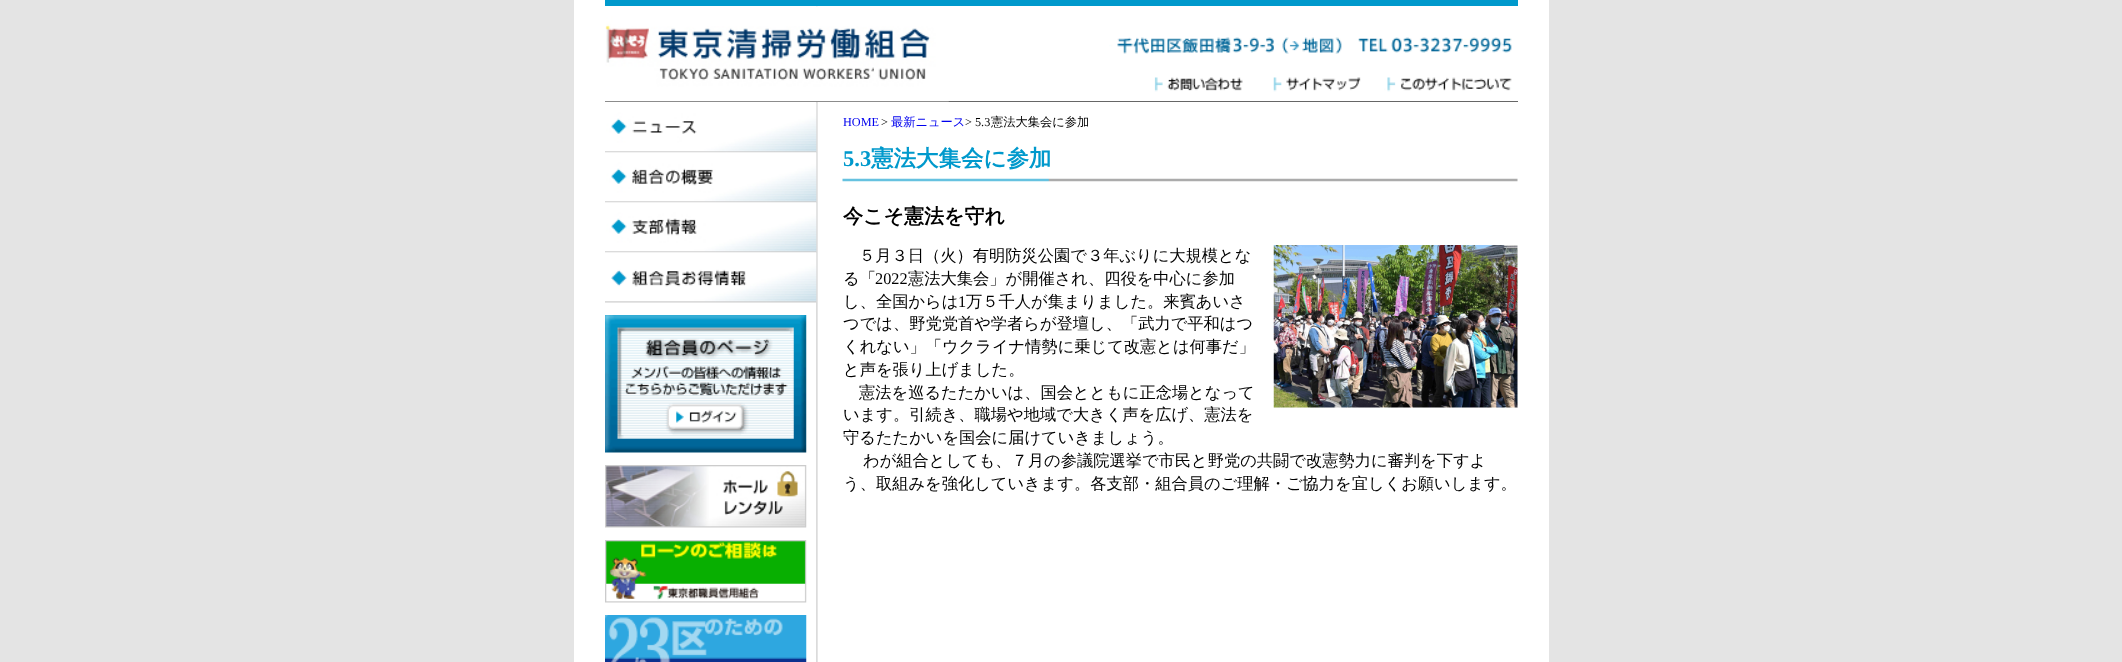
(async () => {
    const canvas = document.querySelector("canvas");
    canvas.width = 2122;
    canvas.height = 662;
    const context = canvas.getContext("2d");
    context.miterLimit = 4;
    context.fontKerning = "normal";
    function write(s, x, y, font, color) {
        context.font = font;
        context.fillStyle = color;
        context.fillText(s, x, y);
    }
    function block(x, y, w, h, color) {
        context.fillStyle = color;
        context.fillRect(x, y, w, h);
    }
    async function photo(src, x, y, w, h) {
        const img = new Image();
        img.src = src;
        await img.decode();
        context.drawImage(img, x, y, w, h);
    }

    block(0, 0, 2122, 662, "rgb(228, 228, 228)");
    block(574, 0, 975, 662, "rgb(255, 255, 255)");
    await photo("media/1.png", 816, 6, 2, 656);
    block(605, 0, 913, 6, "rgb(0, 153, 204)");
    block(605, 101, 913, 1, "rgb(102, 102, 102)");
    await photo("media/2.png", 605, 6, 344, 96);
    await photo("media/3.png", 1109, 37, 170, 17);
    await photo("media/4.png", 1282, 37, 60, 17);
    await photo("media/5.png", 1358, 37, 154, 16);
    await photo("media/6.png", 1154, 77, 89, 15);
    await photo("media/7.png", 1273, 77, 88, 15);
    await photo("media/8.png", 1384, 77, 128, 15);
    await photo("media/9.png", 605, 102, 212, 51);
    await photo("media/10.png", 605, 152, 212, 51);
    await photo("media/11.png", 605, 202, 212, 51);
    await photo("media/12.png", 605, 252, 212, 51);
    await photo("media/13.png", 605, 315, 202, 138);
    await photo("media/14.png", 605, 465, 202, 63);
    await photo("media/15.png", 605, 540, 202, 63);
    await photo("media/16.png", 605, 615, 202, 47);
    write("HOME", 843, 126, "12.25px Liberation Serif", "rgb(0, 0, 238)");
    write(">", 881, 126, "12.25px Liberation Serif", "rgb(0, 0, 0)");
    write("最新ニュース", 891, 126, "500 12.25px WenQuanYi Zen Hei", "rgb(0, 0, 238)");
    write("> 5.3", 965, 126, "12.25px Liberation Serif", "rgb(0, 0, 0)");
    write("憲法大集会に参加", 991, 126, "500 12.25px WenQuanYi Zen Hei", "rgb(0, 0, 0)");
    await photo("media/17.png", 842, 178, 676, 4);
    write("5.3", 843, 166, "bold 22.5px Liberation Serif", "rgb(0, 153, 204)");
    write("憲法大集会に参加", 871, 166, "bold 22.5px WenQuanYi Zen Hei", "rgb(0, 153, 204)");
    write("今こそ憲法を守れ", 843, 223, "bold 20px WenQuanYi Zen Hei", "rgb(0, 0, 0)");
    await photo("media/18.png", 1273, 245, 245, 163);
    write("５月３日（火）有明防災公園で３年ぶりに大規模とな", 859, 261, "500 16.25px WenQuanYi Zen Hei", "rgb(0, 0, 0)");
    write("る「", 843, 284, "500 16.25px WenQuanYi Zen Hei", "rgb(0, 0, 0)");
    write("2022", 875, 284, "16.25px Liberation Serif", "rgb(0, 0, 0)");
    write("憲法大集会」が開催され、四役を中心に参加", 908, 284, "500 16.25px WenQuanYi Zen Hei", "rgb(0, 0, 0)");
    write("し、全国からは", 843, 307, "500 16.25px WenQuanYi Zen Hei", "rgb(0, 0, 0)");
    write("1", 958, 307, "16.25px Liberation Serif", "rgb(0, 0, 0)");
    write("万５千人が集まりました。来賓あいさ", 966, 307, "500 16.25px WenQuanYi Zen Hei", "rgb(0, 0, 0)");
    write("つでは、野党党首や学者らが登壇し、「武力で平和はつ", 843, 329, "500 16.25px WenQuanYi Zen Hei", "rgb(0, 0, 0)");
    write("くれない」「ウクライナ情勢に乗じて改憲とは何事だ」", 843, 352, "500 16.25px WenQuanYi Zen Hei", "rgb(0, 0, 0)");
    write("と声を張り上げました。", 843, 375, "500 16.25px WenQuanYi Zen Hei", "rgb(0, 0, 0)");
    write("憲法を巡るたたかいは、国会とともに正念場となって", 859, 398, "500 16.25px WenQuanYi Zen Hei", "rgb(0, 0, 0)");
    write("います。引続き、職場や地域で大きく声を広げ、憲法を", 843, 420, "500 16.25px WenQuanYi Zen Hei", "rgb(0, 0, 0)");
    write("守るたたかいを国会に届けていきましょう。", 843, 443, "500 16.25px WenQuanYi Zen Hei", "rgb(0, 0, 0)");
    write("わが組合としても、７月の参議院選挙で市民と野党の共闘で改憲勢力に審判を下すよ", 863, 466, "500 16.25px WenQuanYi Zen Hei", "rgb(0, 0, 0)");
    write("う、取組みを強化していきます。各支部・組合員のご理解・ご協力を宜しくお願いします。", 843, 489, "500 16.25px WenQuanYi Zen Hei", "rgb(0, 0, 0)");
})();
